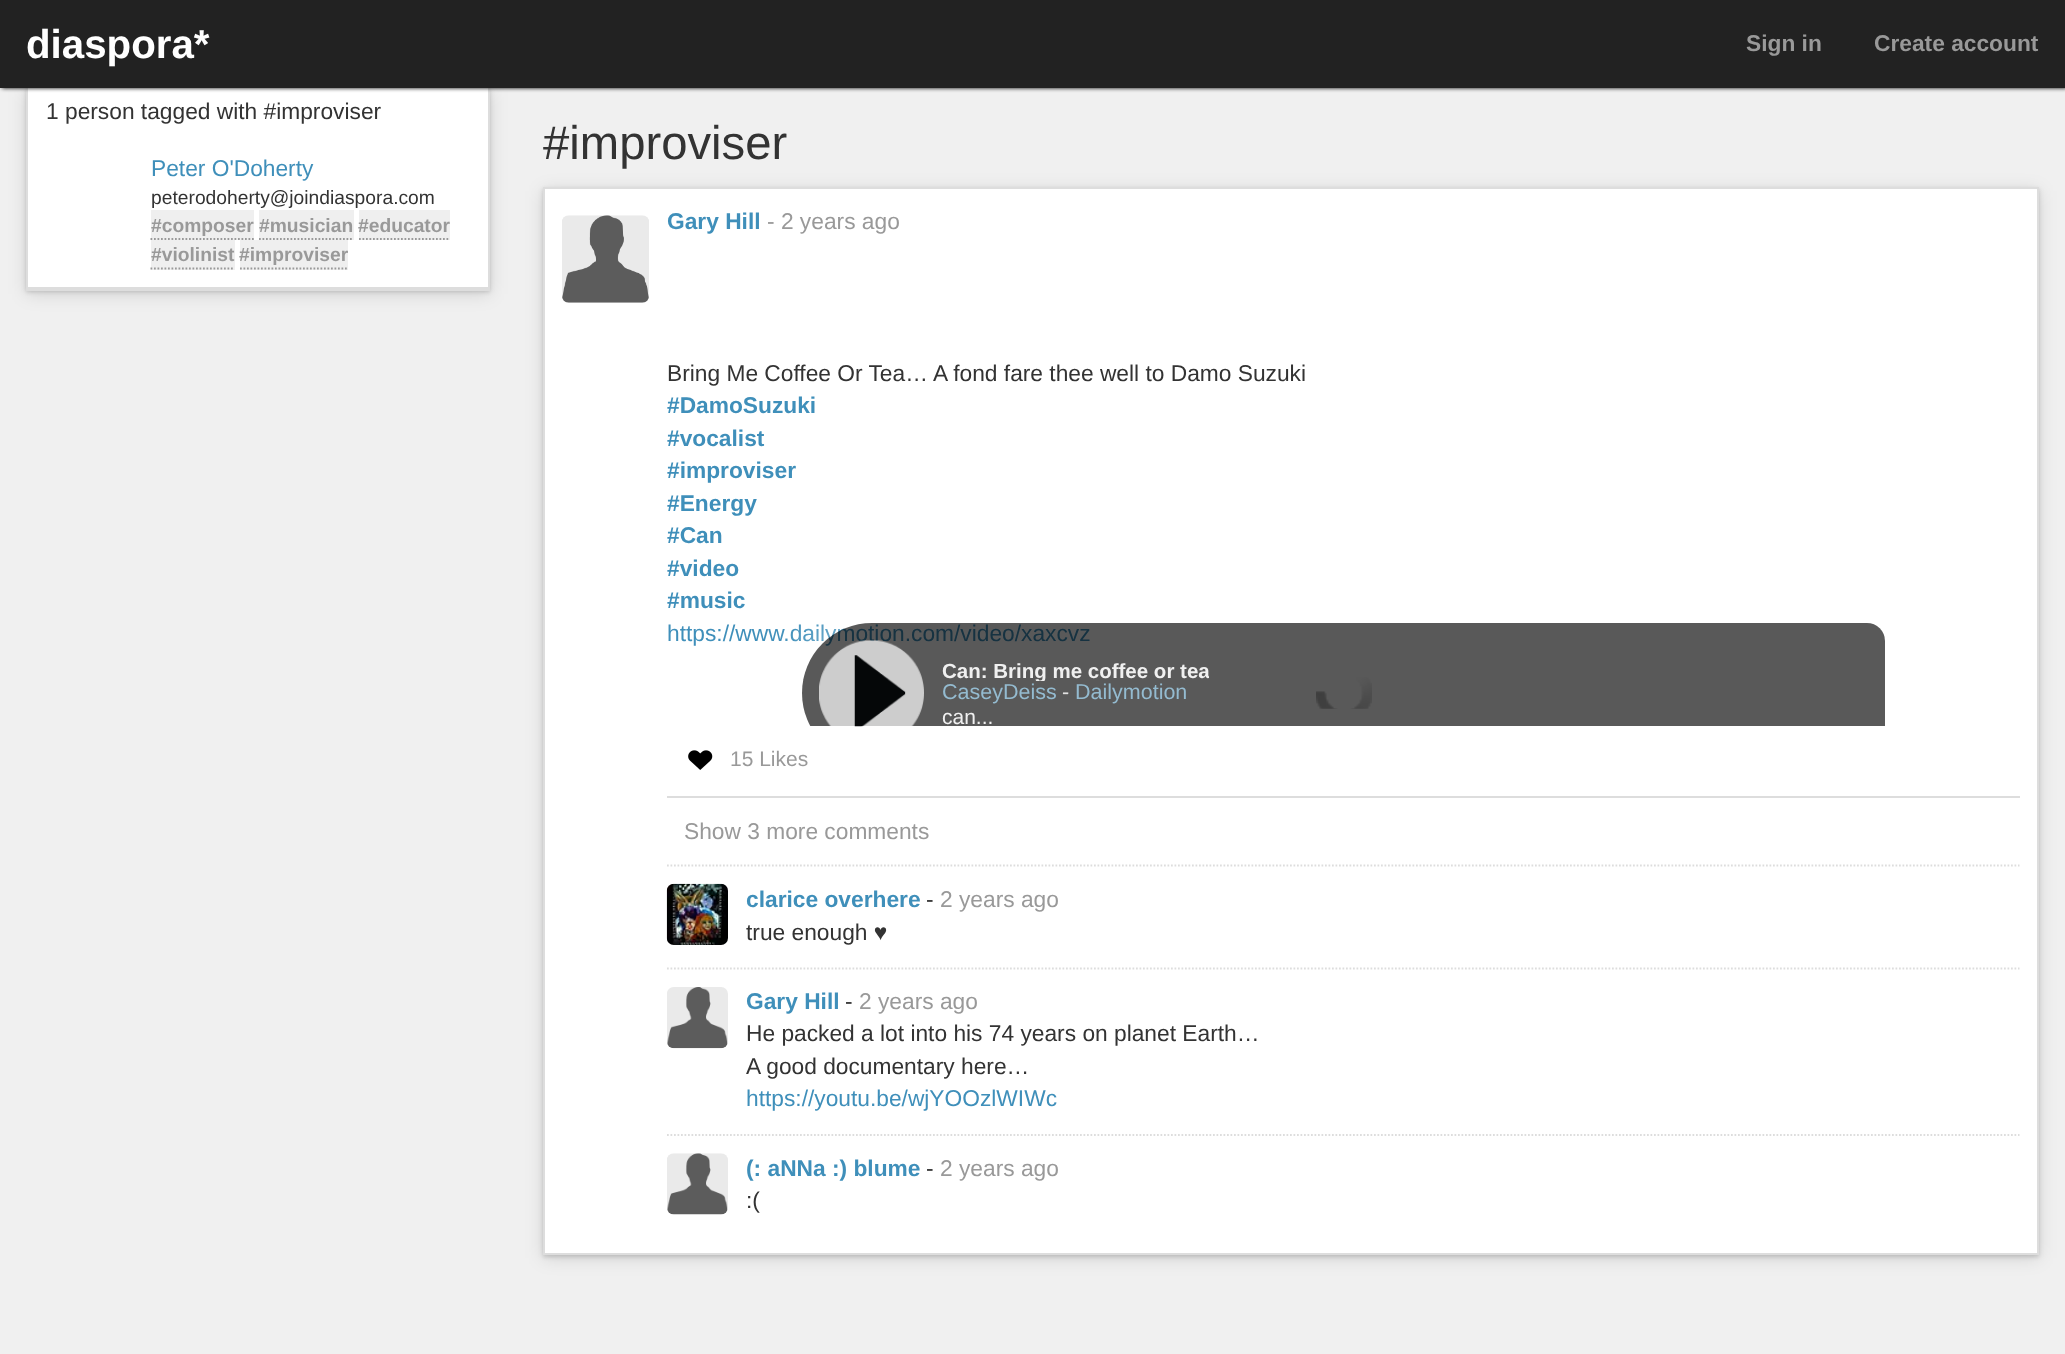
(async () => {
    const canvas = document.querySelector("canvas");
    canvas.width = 2065;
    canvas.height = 1354;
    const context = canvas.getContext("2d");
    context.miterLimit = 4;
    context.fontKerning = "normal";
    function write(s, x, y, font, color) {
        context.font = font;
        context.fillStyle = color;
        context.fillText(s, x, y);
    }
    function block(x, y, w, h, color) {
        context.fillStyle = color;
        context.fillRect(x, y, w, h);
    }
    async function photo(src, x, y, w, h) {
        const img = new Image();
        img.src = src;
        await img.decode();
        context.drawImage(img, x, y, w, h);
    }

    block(0, 0, 2065, 1354, "rgb(240, 240, 240)");
    context.fillStyle = "rgba(0, 0, 0, 0.12)";
    context.filter = "blur(9px)";
    context.beginPath();
    context.rect(26, 91, 464, 203);
    context.fill();
    context.filter = "none";
    context.fillStyle = "rgba(0, 0, 0, 0.16)";
    context.filter = "blur(2px)";
    context.beginPath();
    context.rect(26, 89, 464, 203);
    context.fill();
    context.filter = "none";
    block(28, 88, 460, 199, "rgb(255, 255, 255)");
    block(488, 88, 2, 203, "rgb(221, 221, 221)");
    block(26, 289, 464, 2, "rgb(221, 221, 221)");
    block(26, 88, 2, 203, "rgb(221, 221, 221)");
    context.fillStyle = "rgb(0, 0, 0)";
    context.filter = "blur(2px)";
    context.beginPath();
    context.rect(2, 0, 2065, 88);
    context.fill();
    context.filter = "none";
    block(0, 0, 2065, 88, "rgb(34, 34, 34)");
    write("diaspora*", 26, 58, "bold 40.25px Liberation Sans", "rgb(255, 255, 255)");
    write("Sign in", 1746, 51, "bold 22.75px Liberation Sans", "rgb(153, 153, 153)");
    write("Create account", 1874, 51, "bold 22.75px Liberation Sans", "rgb(153, 153, 153)");
    write("1 person tagged with #improviser", 46, 119, "22.75px Liberation Sans", "rgb(51, 51, 51)");
    block(28, 287, 460, 2, "rgb(221, 221, 221)");
    write("Peter O'Doherty", 151, 176, "22.75px Liberation Sans", "rgb(63, 143, 186)");
    write("peterodoherty@joindiaspora.com", 151, 204, "19.25px Liberation Sans", "rgb(51, 51, 51)");
    block(151, 210, 103, 30, "rgb(239, 239, 239)");
    context.beginPath();
    context.moveTo(150.5, 239);
    context.lineTo(254, 239);
    context.strokeStyle = "rgb(153, 153, 153)";
    context.lineWidth = 1.8;
    context.setLineDash([1.75, 1.75]);
    context.stroke();
    write("#composer", 151, 232, "bold 19.25px Liberation Sans", "rgb(153, 153, 153)");
    block(259, 210, 95, 30, "rgb(239, 239, 239)");
    context.beginPath();
    context.moveTo(259, 239);
    context.lineTo(353.5, 239);
    context.stroke();
    write("#musician", 259, 232, "bold 19.25px Liberation Sans", "rgb(153, 153, 153)");
    block(359, 210, 91, 30, "rgb(239, 239, 239)");
    context.beginPath();
    context.moveTo(359, 239);
    context.lineTo(450, 239);
    context.stroke();
    write("#educator", 358, 232, "bold 19.25px Liberation Sans", "rgb(153, 153, 153)");
    block(151, 240, 84, 30, "rgb(239, 239, 239)");
    context.beginPath();
    context.moveTo(150.5, 268.5);
    context.lineTo(234.5, 268.5);
    context.stroke();
    write("#violinist", 151, 261, "bold 19.25px Liberation Sans", "rgb(153, 153, 153)");
    block(240, 240, 108, 30, "rgb(239, 239, 239)");
    context.beginPath();
    context.moveTo(240, 268.5);
    context.lineTo(348, 268.5);
    context.stroke();
    write("#improviser", 239, 261, "bold 19.25px Liberation Sans", "rgb(153, 153, 153)");
    context.fillStyle = "rgba(0, 0, 0, 0.12)";
    context.filter = "blur(9px)";
    context.beginPath();
    context.rect(543, 191, 1496, 1067);
    context.fill();
    context.filter = "none";
    write("#improviser", 543, 159, "47.25px Liberation Sans", "rgb(51, 51, 51)");
    context.fillStyle = "rgba(0, 0, 0, 0.16)";
    context.filter = "blur(2px)";
    context.beginPath();
    context.rect(543, 189, 1496, 1068);
    context.fill();
    context.filter = "none";
    context.fillStyle = "rgb(255, 255, 255)";
    context.beginPath();
    context.rect(544, 188, 1494, 1066);
    context.fill();
    context.strokeStyle = "rgb(221, 221, 221)";
    context.lineWidth = 2;
    context.setLineDash([]);
    context.stroke();
    await photo("media/1.png", 562, 215, 87, 88);
    write("Gary Hill", 667, 229, "bold 22.75px Liberation Sans", "rgb(63, 143, 186)");
    write("- 2 years ago", 767, 229, "22.75px Liberation Sans", "rgb(153, 153, 153)");
    write("Bring Me Coffee Or Tea… A fond fare thee well to Damo Suzuki", 667, 381, "22.75px Liberation Sans", "rgb(51, 51, 51)");
    write("#DamoSuzuki", 667, 413, "bold 22.75px Liberation Sans", "rgb(63, 143, 186)");
    write("#vocalist", 667, 446, "bold 22.75px Liberation Sans", "rgb(63, 143, 186)");
    write("#improviser", 667, 478, "bold 22.75px Liberation Sans", "rgb(63, 143, 186)");
    write("#Energy", 667, 511, "bold 22.75px Liberation Sans", "rgb(63, 143, 186)");
    write("#Can", 667, 543, "bold 22.75px Liberation Sans", "rgb(63, 143, 186)");
    write("#video", 667, 576, "bold 22.75px Liberation Sans", "rgb(63, 143, 186)");
    write("#music", 667, 608, "bold 22.75px Liberation Sans", "rgb(63, 143, 186)");
    write("https://www.dailymotion.com/video/xaxcvz", 667, 641, "22.75px Liberation Sans", "rgb(63, 143, 186)");
    await photo("media/2.png", 1316, 677, 56, 32);
    block(667, 796, 1353, 2, "rgb(221, 221, 221)");
    context.save();
    context.beginPath();
    context.rect(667, 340, 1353, 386);
    context.clip();
    context.beginPath();
    context.moveTo(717, 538);
    context.lineTo(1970, 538);
    context.lineTo(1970, 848);
    context.lineTo(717, 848);
    context.closePath();
    context.moveTo(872, 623);
    context.lineTo(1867, 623);
    context.bezierCurveTo(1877, 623, 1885, 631, 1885, 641);
    context.lineTo(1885, 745);
    context.bezierCurveTo(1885, 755, 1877, 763, 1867, 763);
    context.lineTo(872, 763);
    context.bezierCurveTo(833.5, 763, 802, 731.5, 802, 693);
    context.bezierCurveTo(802, 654.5, 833.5, 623, 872, 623);
    context.closePath();
    context.clip("evenodd");
    context.fillStyle = "rgba(255, 255, 255, 0.5)";
    context.filter = "blur(28px)";
    context.beginPath();
    context.roundRect(802, 623, 1083, 140, 70);
    context.fill();
    context.filter = "none";
    context.restore();
    write("15 Likes", 730, 766, "21px Liberation Sans", "rgb(153, 153, 153)");
    context.save();
    context.beginPath();
    context.rect(667, 340, 1353, 386);
    context.clip();
    context.fillStyle = "rgba(0, 0, 0, 0.65)";
    context.beginPath();
    context.roundRect(802, 623, 1083, 140, [70, 18, 18, 70]);
    context.fill();
    context.restore();
    await photo("media/3.png", 819, 640, 105, 87);
    context.save();
    context.beginPath();
    context.rect(942, 662, 267, 19);
    context.clip();
    write("Can: Bring me coffee or tea", 942, 678, "bold 20.5px Liberation Sans", "rgb(240, 240, 240)");
    context.restore();
    write("CaseyDeiss", 942, 699, "21.5px Liberation Sans", "rgb(148, 187, 208)");
    write("-", 1062, 699, "21.5px Liberation Sans", "rgb(225, 225, 225)");
    write("Dailymotion", 1075, 699, "21.5px Liberation Sans", "rgb(148, 187, 208)");
    write("can...", 942, 724, "21px Liberation Sans", "rgb(240, 240, 240)");
    await photo("media/4.png", 688, 750, 25, 20);
    write("Show 3 more comments", 684, 839, "22.75px Liberation Sans", "rgb(153, 153, 153)");
    context.beginPath();
    context.moveTo(667, 865.5);
    context.lineTo(2019.5, 865.5);
    context.lineWidth = 1.8;
    context.setLineDash([1.75, 1.75]);
    context.stroke();
    await photo("media/5.png", 666, 883, 62, 62);
    write("clarice overhere", 746, 907, "bold 22.75px Liberation Sans", "rgb(63, 143, 186)");
    write("-", 926, 907, "22.75px Liberation Sans", "rgb(51, 51, 51)");
    write("2 years ago", 940, 907, "22.75px Liberation Sans", "rgb(153, 153, 153)");
    write("true enough ♥", 746, 940, "22.75px Liberation Sans", "rgb(51, 51, 51)");
    context.beginPath();
    context.moveTo(667, 968.5);
    context.lineTo(2019.5, 968.5);
    context.stroke();
    await photo("media/6.png", 667, 987, 61, 62);
    write("Gary Hill", 746, 1009, "bold 22.75px Liberation Sans", "rgb(63, 143, 186)");
    write("-", 845, 1009, "22.75px Liberation Sans", "rgb(51, 51, 51)");
    write("2 years ago", 859, 1009, "22.75px Liberation Sans", "rgb(153, 153, 153)");
    write("He packed a lot into his 74 years on planet Earth…", 746, 1041, "22.75px Liberation Sans", "rgb(51, 51, 51)");
    write("A good documentary here…", 746, 1074, "22.75px Liberation Sans", "rgb(51, 51, 51)");
    write("https://youtu.be/wjYOOzlWIWc", 746, 1106, "22.75px Liberation Sans", "rgb(63, 143, 186)");
    context.beginPath();
    context.moveTo(667, 1135);
    context.lineTo(2019.5, 1135);
    context.stroke();
    await photo("media/7.png", 667, 1153, 61, 62);
    write("(: aNNa :) blume", 746, 1176, "bold 22.75px Liberation Sans", "rgb(63, 143, 186)");
    write("-", 926, 1176, "22.75px Liberation Sans", "rgb(51, 51, 51)");
    write("2 years ago", 940, 1176, "22.75px Liberation Sans", "rgb(153, 153, 153)");
    write(":(", 746, 1208, "22.75px Liberation Sans", "rgb(51, 51, 51)");
})();
